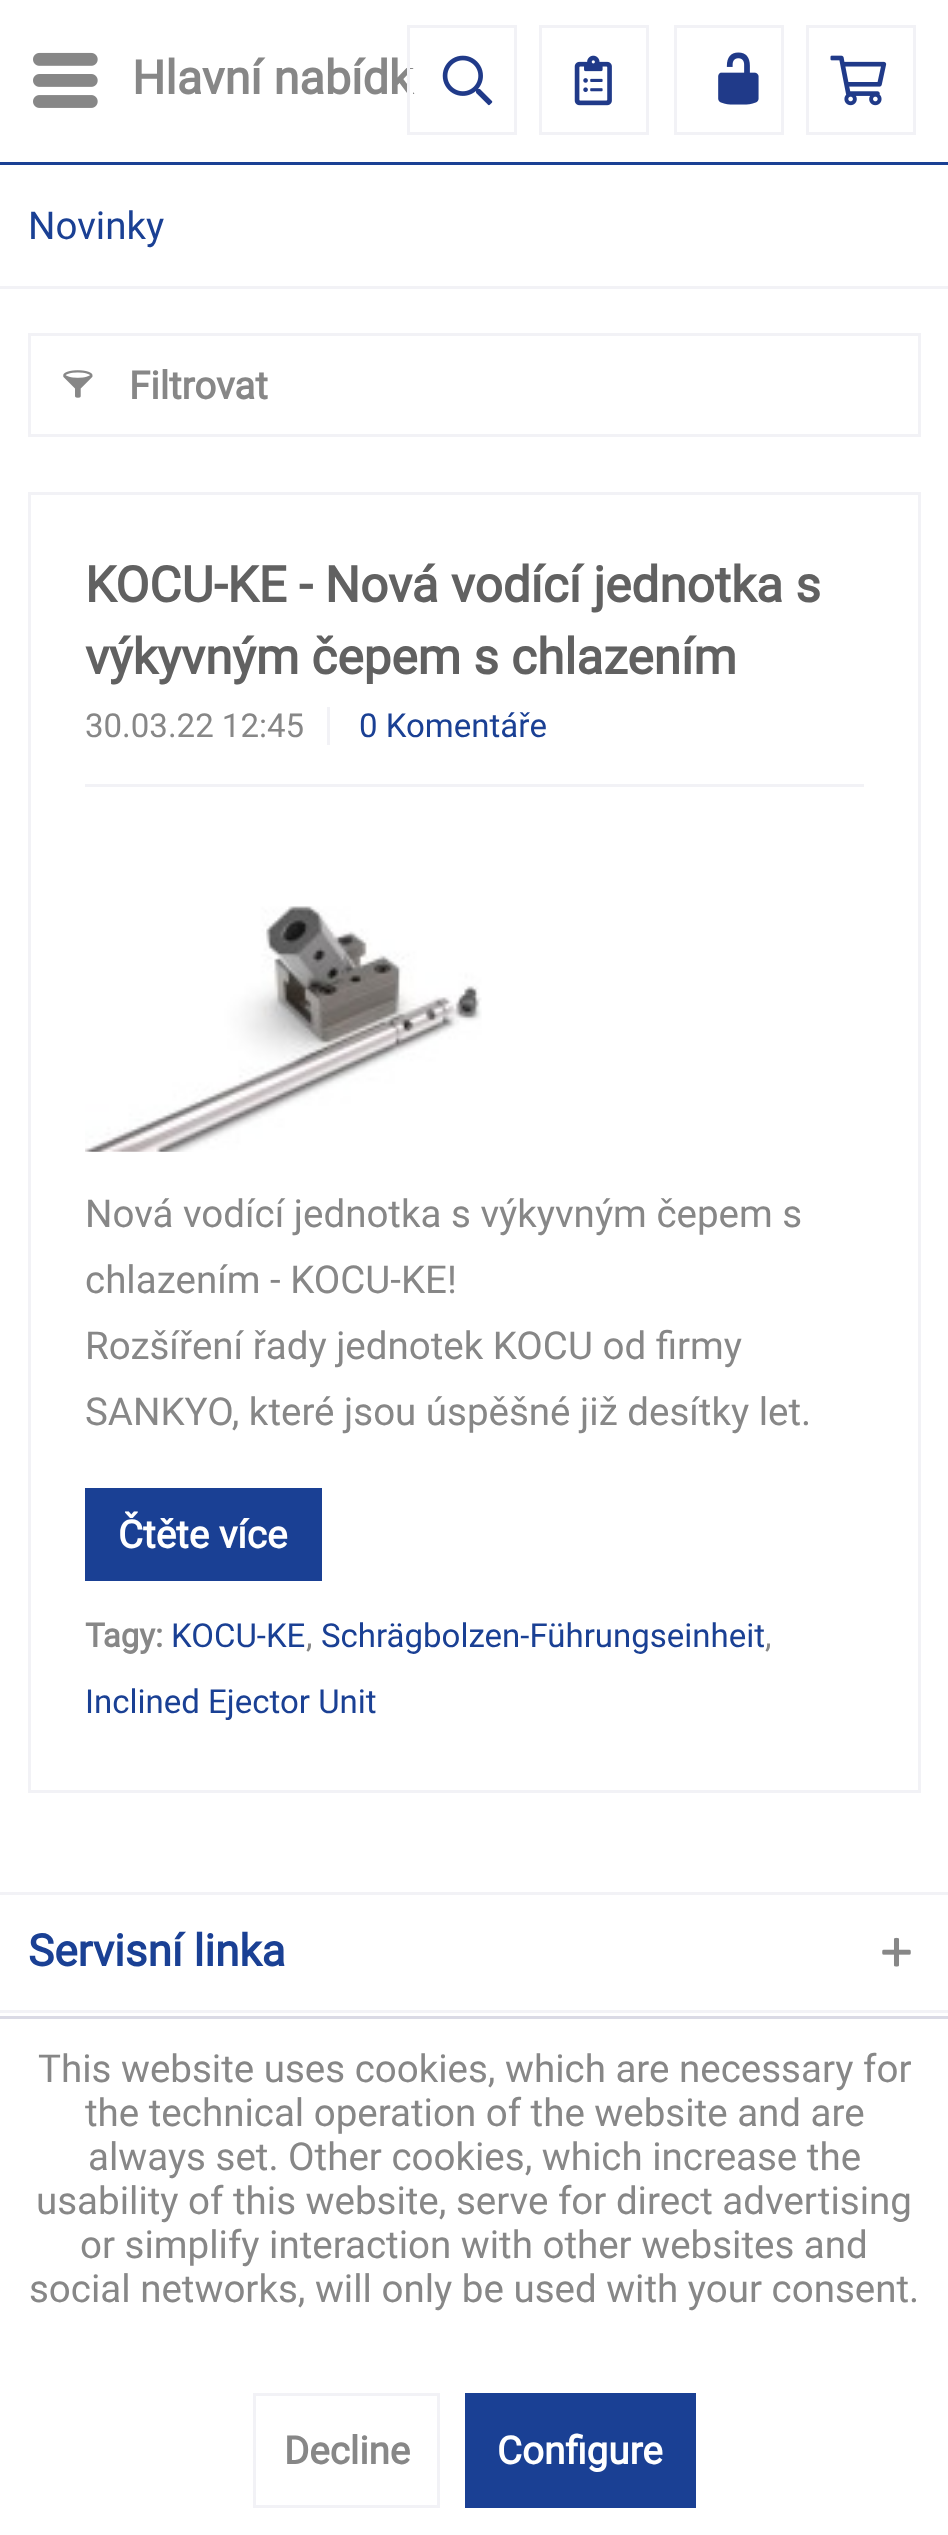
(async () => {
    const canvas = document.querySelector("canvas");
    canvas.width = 948;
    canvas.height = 2535;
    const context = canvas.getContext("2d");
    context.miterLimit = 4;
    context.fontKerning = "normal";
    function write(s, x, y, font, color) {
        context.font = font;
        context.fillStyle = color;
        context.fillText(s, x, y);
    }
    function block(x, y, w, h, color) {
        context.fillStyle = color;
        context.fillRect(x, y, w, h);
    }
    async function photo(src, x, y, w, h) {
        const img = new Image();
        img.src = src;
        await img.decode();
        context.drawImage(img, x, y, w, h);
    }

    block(0, 0, 948, 2535, "rgb(255, 255, 255)");
    block(0, 162, 948, 3, "rgb(26, 64, 148)");
    await photo("media/1.png", 33, 52, 65, 56);
    write("Hlavní nabídk", 132, 94, "bold 46.75px Roboto", "rgb(135, 135, 135)");
    block(410, 69, 3, 25, "rgb(255, 255, 255)");
    context.strokeStyle = "rgb(242, 242, 246)";
    context.lineWidth = 3;
    context.strokeRect(408.5, 26.5, 107, 107);
    await photo("media/2.png", 442, 55, 51, 51);
    context.strokeRect(540.5, 26.5, 107, 107);
    await photo("media/3.png", 574, 55, 38, 51);
    context.strokeRect(675.5, 26.5, 107, 107);
    await photo("media/4.png", 718, 52, 41, 53);
    context.strokeRect(807.5, 26.5, 107, 107);
    await photo("media/5.png", 830, 55, 57, 51);
    block(0, 286, 948, 3, "rgb(242, 242, 246)");
    write("Novinky", 28, 239, "38.5px Roboto", "rgb(26, 64, 148)");
    context.strokeRect(29.5, 334.5, 890, 101);
    await photo("media/6.png", 63, 370, 30, 28);
    write("Filtrovat", 129, 399, "bold 38.5px Roboto", "rgb(135, 135, 135)");
    context.strokeRect(29.5, 493.5, 890, 1298);
    write("KOCU-KE - Nová vodící jednotka s", 85, 602, "bold 49.5px Roboto", "rgb(97, 97, 97)");
    write("výkyvným čepem s chlazením", 85, 674, "bold 49.5px Roboto", "rgb(97, 97, 97)");
    block(85, 784, 779, 3, "rgb(242, 242, 246)");
    block(327, 707, 3, 38, "rgb(242, 242, 246)");
    write("30.03.22 12:45", 85, 737, "33px Roboto", "rgb(135, 135, 135)");
    write("0 Komentáře", 359, 737, "33px Roboto", "rgb(26, 64, 148)");
    await photo("media/7.png", 85, 906, 397, 246);
    write("Nová vodící jednotka s výkyvným čepem s", 85, 1227, "38.5px Roboto", "rgb(135, 135, 135)");
    write("chlazením - KOCU-KE!", 85, 1293, "38.5px Roboto", "rgb(135, 135, 135)");
    write("Rozšíření řady jednotek KOCU od firmy", 85, 1359, "38.5px Roboto", "rgb(135, 135, 135)");
    write("SANKYO, které jsou úspěšné již desítky let.", 85, 1425, "38.5px Roboto", "rgb(135, 135, 135)");
    block(85, 1488, 237, 93, "rgb(26, 64, 148)");
    write("Čtěte více", 118, 1548, "bold 38.5px Roboto", "rgb(255, 255, 255)");
    write("Tagy:", 85, 1647, "bold 33px Roboto", "rgb(135, 135, 135)");
    write("KOCU-KE", 171, 1647, "33px Roboto", "rgb(26, 64, 148)");
    write(",", 306, 1647, "33px Roboto", "rgb(135, 135, 135)");
    write("Schrägbolzen-Führungseinheit", 321, 1647, "33px Roboto", "rgb(26, 64, 148)");
    write(",", 765, 1647, "33px Roboto", "rgb(135, 135, 135)");
    write("Inclined Ejector Unit", 85, 1713, "33px Roboto", "rgb(26, 64, 148)");
    block(0, 1892, 948, 3, "rgb(242, 242, 246)");
    write("Servisní linka", 28, 1966, "bold 44px Roboto", "rgb(26, 64, 148)");
    await photo("media/8.png", 882, 1937, 29, 30);
    block(0, 2010, 948, 3, "rgb(242, 242, 246)");
    block(0, 2016, 948, 3, "rgb(218, 218, 229)");
    write("This website uses cookies, which are necessary for", 38, 2082, "38.5px Roboto", "rgb(135, 135, 135)");
    write("the technical operation of the website and are", 85, 2126, "38.5px Roboto", "rgb(135, 135, 135)");
    write("always set. Other cookies, which increase the", 88, 2170, "38.5px Roboto", "rgb(135, 135, 135)");
    write("usability of this website, serve for direct advertising", 36, 2214, "38.5px Roboto", "rgb(135, 135, 135)");
    write("or simplify interaction with other websites and", 80, 2258, "38.5px Roboto", "rgb(135, 135, 135)");
    write("social networks, will only be used with your consent.", 29, 2302, "38.5px Roboto", "rgb(135, 135, 135)");
    context.strokeRect(254.5, 2394.5, 184, 112);
    write("Decline", 284, 2464, "bold 38.5px Roboto", "rgb(135, 135, 135)");
    block(465, 2393, 231, 115, "rgb(26, 64, 148)");
    write("Configure", 497, 2464, "bold 38.5px Roboto", "rgb(255, 255, 255)");
})();
